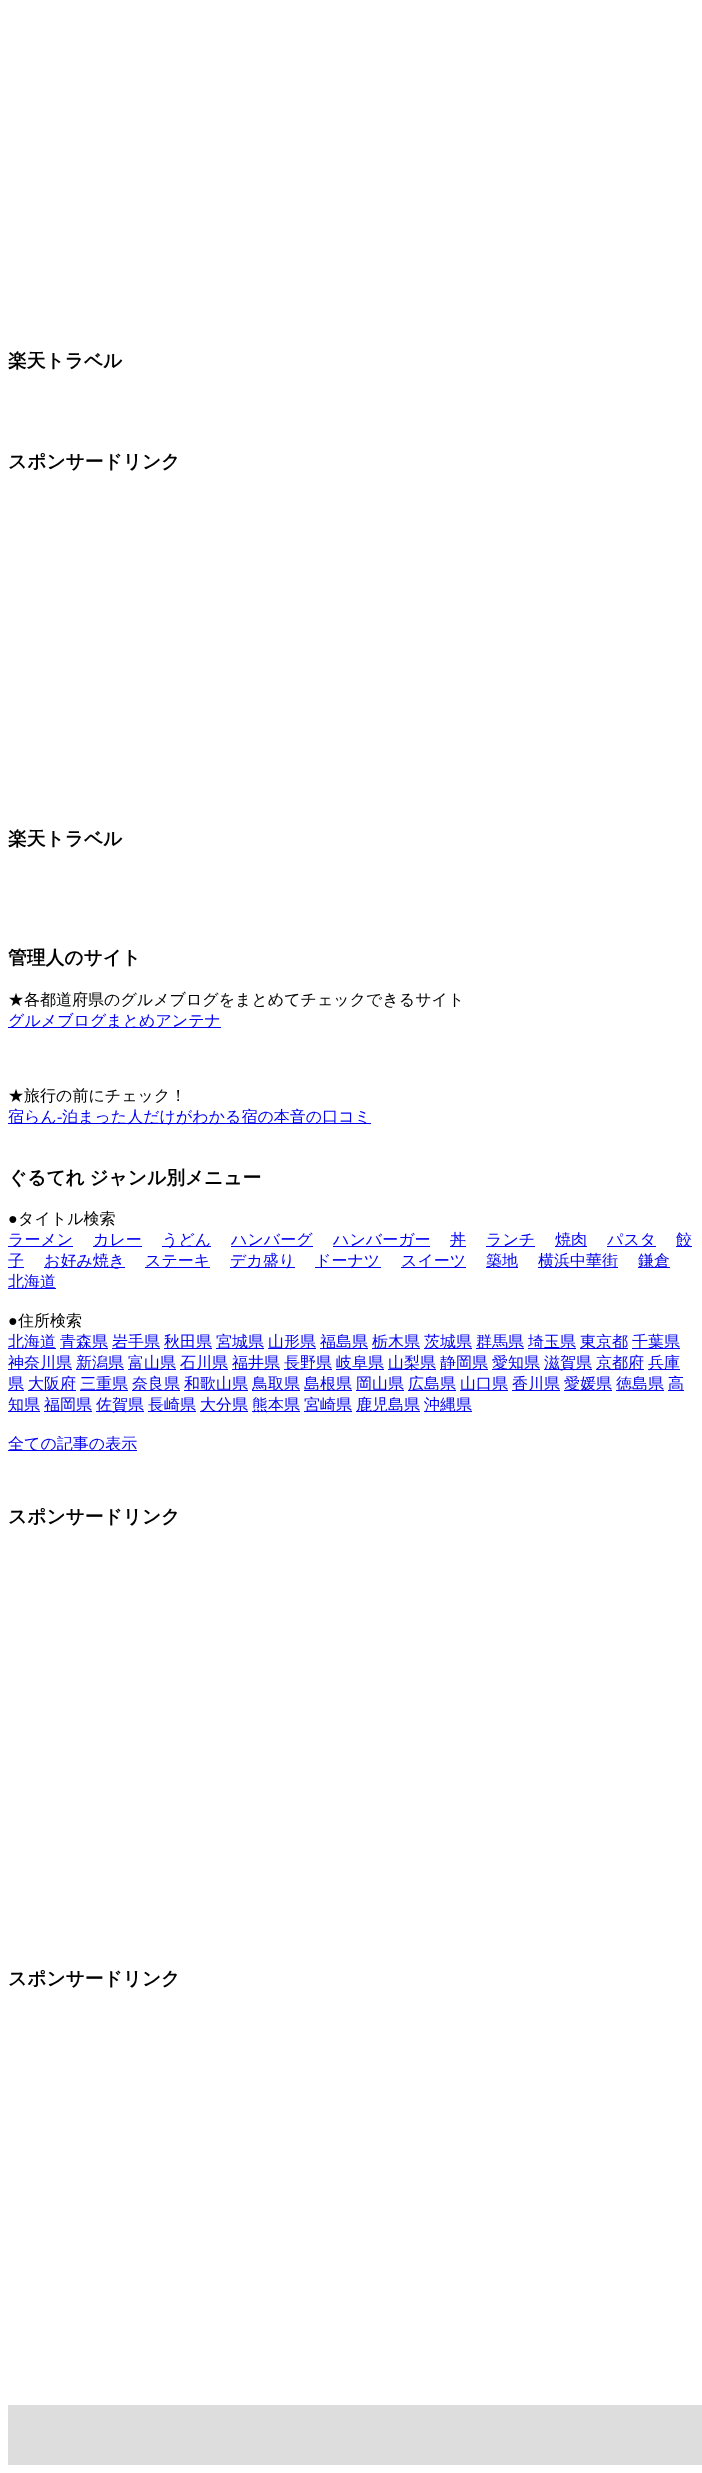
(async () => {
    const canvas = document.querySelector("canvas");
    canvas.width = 702;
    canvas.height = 2473;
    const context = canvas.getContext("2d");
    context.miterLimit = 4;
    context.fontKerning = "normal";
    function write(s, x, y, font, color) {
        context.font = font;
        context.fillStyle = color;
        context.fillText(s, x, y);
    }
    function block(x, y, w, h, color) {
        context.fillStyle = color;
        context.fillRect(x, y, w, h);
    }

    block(0, 0, 702, 2473, "rgb(255, 255, 255)");
    write("楽天トラベル", 8, 367, "bold 18.75px WenQuanYi Zen Hei", "rgb(0, 0, 0)");
    write("スポンサードリンク", 8, 468, "bold 18.75px WenQuanYi Zen Hei", "rgb(0, 0, 0)");
    write("楽天トラベル", 8, 845, "bold 18.75px WenQuanYi Zen Hei", "rgb(0, 0, 0)");
    write("管理人のサイト", 8, 964, "bold 18.75px WenQuanYi Zen Hei", "rgb(0, 0, 0)");
    write("★各都道府県のグルメブログをまとめてチェックできるサイト", 8, 1005, "500 16px WenQuanYi Zen Hei", "rgb(0, 0, 0)");
    block(8, 1027, 213, 1, "rgb(0, 0, 238)");
    write("グルメブログまとめアンテナ", 8, 1026, "500 16px WenQuanYi Zen Hei", "rgb(0, 0, 238)");
    write("★旅行の前にチェック！", 8, 1101, "500 16px WenQuanYi Zen Hei", "rgb(0, 0, 0)");
    block(8, 1123, 363, 1, "rgb(0, 0, 238)");
    write("宿らん", 8, 1122, "500 16px WenQuanYi Zen Hei", "rgb(0, 0, 238)");
    write("-", 57, 1122, "16px Liberation Serif", "rgb(0, 0, 238)");
    write("泊まった人だけがわかる宿の本音の口コミ", 62, 1122, "500 16px WenQuanYi Zen Hei", "rgb(0, 0, 238)");
    context.wordSpacing = "-1px";
    write("ぐるてれ ジャンル別メニュー", 8, 1184, "bold 18.75px WenQuanYi Zen Hei", "rgb(0, 0, 0)");
    context.wordSpacing = "0px";
    write("●", 8, 1224, "16px Liberation Serif", "rgb(0, 0, 0)");
    write("タイトル検索", 18, 1224, "500 16px WenQuanYi Zen Hei", "rgb(0, 0, 0)");
    block(8, 1246, 65, 1, "rgb(0, 0, 238)");
    write("ラーメン", 8, 1245, "500 16px WenQuanYi Zen Hei", "rgb(0, 0, 238)");
    block(93, 1246, 49, 1, "rgb(0, 0, 238)");
    write("カレー", 93, 1245, "500 16px WenQuanYi Zen Hei", "rgb(0, 0, 238)");
    block(162, 1246, 49, 1, "rgb(0, 0, 238)");
    write("うどん", 162, 1245, "500 16px WenQuanYi Zen Hei", "rgb(0, 0, 238)");
    block(231, 1246, 82, 1, "rgb(0, 0, 238)");
    write("ハンバーグ", 231, 1245, "500 16px WenQuanYi Zen Hei", "rgb(0, 0, 238)");
    block(333, 1246, 97, 1, "rgb(0, 0, 238)");
    write("ハンバーガー", 333, 1245, "500 16px WenQuanYi Zen Hei", "rgb(0, 0, 238)");
    block(450, 1246, 16, 1, "rgb(0, 0, 238)");
    write("丼", 450, 1245, "500 16px WenQuanYi Zen Hei", "rgb(0, 0, 238)");
    block(486, 1246, 49, 1, "rgb(0, 0, 238)");
    write("ランチ", 486, 1245, "500 16px WenQuanYi Zen Hei", "rgb(0, 0, 238)");
    block(555, 1246, 32, 1, "rgb(0, 0, 238)");
    write("焼肉", 555, 1245, "500 16px WenQuanYi Zen Hei", "rgb(0, 0, 238)");
    block(607, 1246, 49, 1, "rgb(0, 0, 238)");
    write("パスタ", 607, 1245, "500 16px WenQuanYi Zen Hei", "rgb(0, 0, 238)");
    block(676, 1246, 16, 1, "rgb(0, 0, 238)");
    write("餃", 676, 1245, "500 16px WenQuanYi Zen Hei", "rgb(0, 0, 238)");
    block(8, 1267, 16, 1, "rgb(0, 0, 238)");
    write("子", 8, 1266, "500 16px WenQuanYi Zen Hei", "rgb(0, 0, 238)");
    block(44, 1267, 81, 1, "rgb(0, 0, 238)");
    write("お好み焼き", 44, 1266, "500 16px WenQuanYi Zen Hei", "rgb(0, 0, 238)");
    block(145, 1267, 65, 1, "rgb(0, 0, 238)");
    write("ステーキ", 145, 1266, "500 16px WenQuanYi Zen Hei", "rgb(0, 0, 238)");
    block(230, 1267, 65, 1, "rgb(0, 0, 238)");
    write("デカ盛り", 230, 1266, "500 16px WenQuanYi Zen Hei", "rgb(0, 0, 238)");
    block(315, 1267, 66, 1, "rgb(0, 0, 238)");
    write("ドーナツ", 315, 1266, "500 16px WenQuanYi Zen Hei", "rgb(0, 0, 238)");
    block(401, 1267, 65, 1, "rgb(0, 0, 238)");
    write("スイーツ", 401, 1266, "500 16px WenQuanYi Zen Hei", "rgb(0, 0, 238)");
    block(486, 1267, 32, 1, "rgb(0, 0, 238)");
    write("築地", 486, 1266, "500 16px WenQuanYi Zen Hei", "rgb(0, 0, 238)");
    block(538, 1267, 80, 1, "rgb(0, 0, 238)");
    write("横浜中華街", 538, 1266, "500 16px WenQuanYi Zen Hei", "rgb(0, 0, 238)");
    block(638, 1267, 32, 1, "rgb(0, 0, 238)");
    write("鎌倉", 638, 1266, "500 16px WenQuanYi Zen Hei", "rgb(0, 0, 238)");
    block(8, 1288, 48, 1, "rgb(0, 0, 238)");
    write("北海道", 8, 1287, "500 16px WenQuanYi Zen Hei", "rgb(0, 0, 238)");
    write("●", 8, 1326, "16px Liberation Serif", "rgb(0, 0, 0)");
    write("住所検索", 18, 1326, "500 16px WenQuanYi Zen Hei", "rgb(0, 0, 0)");
    block(8, 1348, 48, 1, "rgb(0, 0, 238)");
    write("北海道", 8, 1347, "500 16px WenQuanYi Zen Hei", "rgb(0, 0, 238)");
    block(60, 1348, 48, 1, "rgb(0, 0, 238)");
    write("青森県", 60, 1347, "500 16px WenQuanYi Zen Hei", "rgb(0, 0, 238)");
    block(112, 1348, 48, 1, "rgb(0, 0, 238)");
    write("岩手県", 112, 1347, "500 16px WenQuanYi Zen Hei", "rgb(0, 0, 238)");
    block(164, 1348, 48, 1, "rgb(0, 0, 238)");
    write("秋田県", 164, 1347, "500 16px WenQuanYi Zen Hei", "rgb(0, 0, 238)");
    block(216, 1348, 48, 1, "rgb(0, 0, 238)");
    write("宮城県", 216, 1347, "500 16px WenQuanYi Zen Hei", "rgb(0, 0, 238)");
    block(268, 1348, 48, 1, "rgb(0, 0, 238)");
    write("山形県", 268, 1347, "500 16px WenQuanYi Zen Hei", "rgb(0, 0, 238)");
    block(320, 1348, 48, 1, "rgb(0, 0, 238)");
    write("福島県", 320, 1347, "500 16px WenQuanYi Zen Hei", "rgb(0, 0, 238)");
    block(372, 1348, 48, 1, "rgb(0, 0, 238)");
    write("栃木県", 372, 1347, "500 16px WenQuanYi Zen Hei", "rgb(0, 0, 238)");
    block(424, 1348, 48, 1, "rgb(0, 0, 238)");
    write("茨城県", 424, 1347, "500 16px WenQuanYi Zen Hei", "rgb(0, 0, 238)");
    block(476, 1348, 48, 1, "rgb(0, 0, 238)");
    write("群馬県", 476, 1347, "500 16px WenQuanYi Zen Hei", "rgb(0, 0, 238)");
    block(528, 1348, 48, 1, "rgb(0, 0, 238)");
    write("埼玉県", 528, 1347, "500 16px WenQuanYi Zen Hei", "rgb(0, 0, 238)");
    block(580, 1348, 48, 1, "rgb(0, 0, 238)");
    write("東京都", 580, 1347, "500 16px WenQuanYi Zen Hei", "rgb(0, 0, 238)");
    block(632, 1348, 48, 1, "rgb(0, 0, 238)");
    write("千葉県", 632, 1347, "500 16px WenQuanYi Zen Hei", "rgb(0, 0, 238)");
    block(8, 1369, 64, 1, "rgb(0, 0, 238)");
    write("神奈川県", 8, 1368, "500 16px WenQuanYi Zen Hei", "rgb(0, 0, 238)");
    block(76, 1369, 48, 1, "rgb(0, 0, 238)");
    write("新潟県", 76, 1368, "500 16px WenQuanYi Zen Hei", "rgb(0, 0, 238)");
    block(128, 1369, 48, 1, "rgb(0, 0, 238)");
    write("富山県", 128, 1368, "500 16px WenQuanYi Zen Hei", "rgb(0, 0, 238)");
    block(180, 1369, 48, 1, "rgb(0, 0, 238)");
    write("石川県", 180, 1368, "500 16px WenQuanYi Zen Hei", "rgb(0, 0, 238)");
    block(232, 1369, 48, 1, "rgb(0, 0, 238)");
    write("福井県", 232, 1368, "500 16px WenQuanYi Zen Hei", "rgb(0, 0, 238)");
    block(284, 1369, 48, 1, "rgb(0, 0, 238)");
    write("長野県", 284, 1368, "500 16px WenQuanYi Zen Hei", "rgb(0, 0, 238)");
    block(336, 1369, 48, 1, "rgb(0, 0, 238)");
    write("岐阜県", 336, 1368, "500 16px WenQuanYi Zen Hei", "rgb(0, 0, 238)");
    block(388, 1369, 48, 1, "rgb(0, 0, 238)");
    write("山梨県", 388, 1368, "500 16px WenQuanYi Zen Hei", "rgb(0, 0, 238)");
    block(440, 1369, 48, 1, "rgb(0, 0, 238)");
    write("静岡県", 440, 1368, "500 16px WenQuanYi Zen Hei", "rgb(0, 0, 238)");
    block(492, 1369, 48, 1, "rgb(0, 0, 238)");
    write("愛知県", 492, 1368, "500 16px WenQuanYi Zen Hei", "rgb(0, 0, 238)");
    block(544, 1369, 48, 1, "rgb(0, 0, 238)");
    write("滋賀県", 544, 1368, "500 16px WenQuanYi Zen Hei", "rgb(0, 0, 238)");
    block(596, 1369, 48, 1, "rgb(0, 0, 238)");
    write("京都府", 596, 1368, "500 16px WenQuanYi Zen Hei", "rgb(0, 0, 238)");
    block(648, 1369, 32, 1, "rgb(0, 0, 238)");
    write("兵庫", 648, 1368, "500 16px WenQuanYi Zen Hei", "rgb(0, 0, 238)");
    block(8, 1390, 16, 1, "rgb(0, 0, 238)");
    write("県", 8, 1389, "500 16px WenQuanYi Zen Hei", "rgb(0, 0, 238)");
    block(28, 1390, 48, 1, "rgb(0, 0, 238)");
    write("大阪府", 28, 1389, "500 16px WenQuanYi Zen Hei", "rgb(0, 0, 238)");
    block(80, 1390, 48, 1, "rgb(0, 0, 238)");
    write("三重県", 80, 1389, "500 16px WenQuanYi Zen Hei", "rgb(0, 0, 238)");
    block(132, 1390, 48, 1, "rgb(0, 0, 238)");
    write("奈良県", 132, 1389, "500 16px WenQuanYi Zen Hei", "rgb(0, 0, 238)");
    block(184, 1390, 64, 1, "rgb(0, 0, 238)");
    write("和歌山県", 184, 1389, "500 16px WenQuanYi Zen Hei", "rgb(0, 0, 238)");
    block(252, 1390, 48, 1, "rgb(0, 0, 238)");
    write("鳥取県", 252, 1389, "500 16px WenQuanYi Zen Hei", "rgb(0, 0, 238)");
    block(304, 1390, 48, 1, "rgb(0, 0, 238)");
    write("島根県", 304, 1389, "500 16px WenQuanYi Zen Hei", "rgb(0, 0, 238)");
    block(356, 1390, 48, 1, "rgb(0, 0, 238)");
    write("岡山県", 356, 1389, "500 16px WenQuanYi Zen Hei", "rgb(0, 0, 238)");
    block(408, 1390, 48, 1, "rgb(0, 0, 238)");
    write("広島県", 408, 1389, "500 16px WenQuanYi Zen Hei", "rgb(0, 0, 238)");
    block(460, 1390, 48, 1, "rgb(0, 0, 238)");
    write("山口県", 460, 1389, "500 16px WenQuanYi Zen Hei", "rgb(0, 0, 238)");
    block(512, 1390, 48, 1, "rgb(0, 0, 238)");
    write("香川県", 512, 1389, "500 16px WenQuanYi Zen Hei", "rgb(0, 0, 238)");
    block(564, 1390, 48, 1, "rgb(0, 0, 238)");
    write("愛媛県", 564, 1389, "500 16px WenQuanYi Zen Hei", "rgb(0, 0, 238)");
    block(616, 1390, 48, 1, "rgb(0, 0, 238)");
    write("徳島県", 616, 1389, "500 16px WenQuanYi Zen Hei", "rgb(0, 0, 238)");
    block(668, 1390, 16, 1, "rgb(0, 0, 238)");
    write("高", 668, 1389, "500 16px WenQuanYi Zen Hei", "rgb(0, 0, 238)");
    block(8, 1411, 32, 1, "rgb(0, 0, 238)");
    write("知県", 8, 1410, "500 16px WenQuanYi Zen Hei", "rgb(0, 0, 238)");
    block(44, 1411, 48, 1, "rgb(0, 0, 238)");
    write("福岡県", 44, 1410, "500 16px WenQuanYi Zen Hei", "rgb(0, 0, 238)");
    block(96, 1411, 48, 1, "rgb(0, 0, 238)");
    write("佐賀県", 96, 1410, "500 16px WenQuanYi Zen Hei", "rgb(0, 0, 238)");
    block(148, 1411, 48, 1, "rgb(0, 0, 238)");
    write("長崎県", 148, 1410, "500 16px WenQuanYi Zen Hei", "rgb(0, 0, 238)");
    block(200, 1411, 48, 1, "rgb(0, 0, 238)");
    write("大分県", 200, 1410, "500 16px WenQuanYi Zen Hei", "rgb(0, 0, 238)");
    block(252, 1411, 48, 1, "rgb(0, 0, 238)");
    write("熊本県", 252, 1410, "500 16px WenQuanYi Zen Hei", "rgb(0, 0, 238)");
    block(304, 1411, 48, 1, "rgb(0, 0, 238)");
    write("宮崎県", 304, 1410, "500 16px WenQuanYi Zen Hei", "rgb(0, 0, 238)");
    block(356, 1411, 64, 1, "rgb(0, 0, 238)");
    write("鹿児島県", 356, 1410, "500 16px WenQuanYi Zen Hei", "rgb(0, 0, 238)");
    block(424, 1411, 48, 1, "rgb(0, 0, 238)");
    write("沖縄県", 424, 1410, "500 16px WenQuanYi Zen Hei", "rgb(0, 0, 238)");
    block(8, 1450, 129, 1, "rgb(0, 0, 238)");
    write("全ての記事の表示", 8, 1449, "500 16px WenQuanYi Zen Hei", "rgb(0, 0, 238)");
    write("スポンサードリンク", 8, 1523, "bold 18.75px WenQuanYi Zen Hei", "rgb(0, 0, 0)");
    write("スポンサードリンク", 8, 1985, "bold 18.75px WenQuanYi Zen Hei", "rgb(0, 0, 0)");
    block(8, 2405, 694, 60, "rgb(221, 221, 221)");
})();
